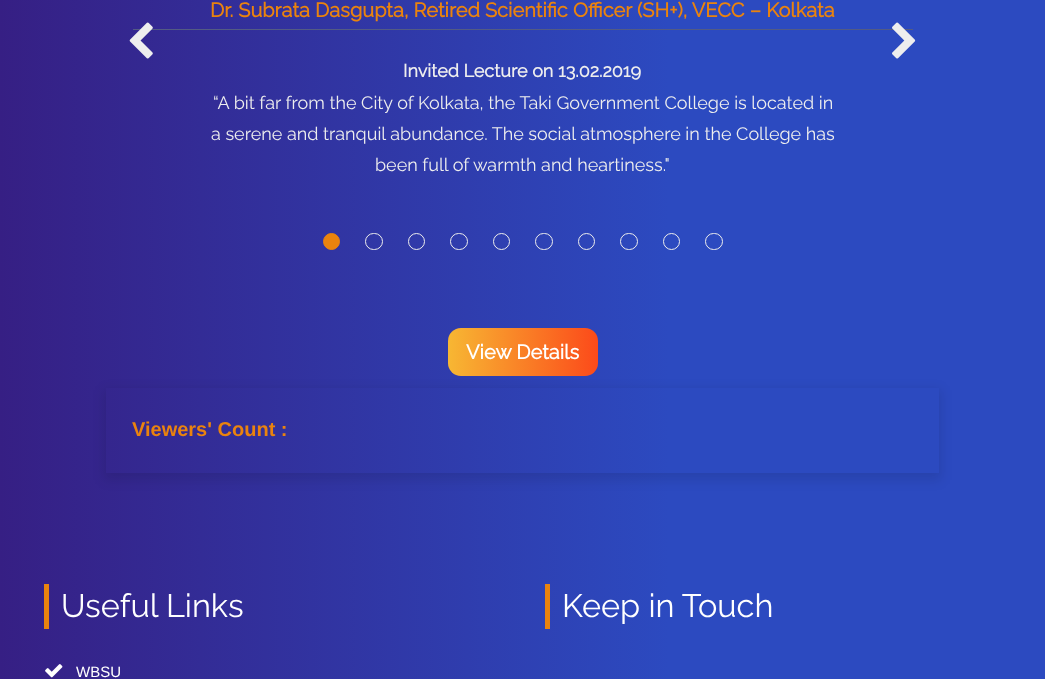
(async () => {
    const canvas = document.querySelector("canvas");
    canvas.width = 1045;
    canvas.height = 679;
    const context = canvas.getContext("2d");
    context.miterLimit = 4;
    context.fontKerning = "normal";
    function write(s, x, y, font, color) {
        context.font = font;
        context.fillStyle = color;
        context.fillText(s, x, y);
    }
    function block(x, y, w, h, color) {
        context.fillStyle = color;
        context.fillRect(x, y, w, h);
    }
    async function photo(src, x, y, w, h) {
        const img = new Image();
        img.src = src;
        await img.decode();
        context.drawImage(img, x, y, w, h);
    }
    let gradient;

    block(0, 0, 1045, 679, "rgb(255, 255, 255)");
    gradient = context.createLinearGradient(0, 523, 1045, 523);
    gradient.addColorStop(0, "rgb(54, 31, 132)");
    gradient.addColorStop(0.64, "rgb(44, 74, 192)");
    gradient.addColorStop(1, "rgb(44, 74, 192)");
    context.fillStyle = gradient;
    context.fillRect(0, 0, 1045, 679);
    block(133, 29, 780, 1, "rgb(83, 91, 131)");
    await photo("media/1.png", 129, 22, 24, 37);
    write("Dr. Subrata Dasgupta, Retired Scientific Officer (SH+), VECC – Kolkata", 210, 17, "bold 20px Raleway", "rgb(234, 131, 14)");
    write("Invited Lecture on 13.02.2019", 403, 77, "bold 18px Raleway", "rgb(238, 238, 238)");
    write("“A bit far from the City of Kolkata, the Taki Government College is located in", 213, 109, "100 18px Raleway", "rgb(238, 238, 238)");
    write("a serene and tranquil abundance. The social atmosphere in the College has", 211, 140, "100 18px Raleway", "rgb(238, 238, 238)");
    write("been full of warmth and heartiness.\"", 375, 171, "100 18px Raleway", "rgb(238, 238, 238)");
    await photo("media/2.png", 892, 22, 24, 37);
    context.fillStyle = "rgb(234, 131, 14)";
    context.beginPath();
    context.arc(331.5, 241.5, 8, 0, Math.PI * 2);
    context.fill();
    context.strokeStyle = "rgb(234, 131, 14)";
    context.stroke();
    context.beginPath();
    context.roundRect(365.5, 233.5, 17, 16, 8);
    context.strokeStyle = "rgb(238, 238, 238)";
    context.stroke();
    context.beginPath();
    context.arc(416.5, 241.5, 8, 0, Math.PI * 2);
    context.stroke();
    context.beginPath();
    context.roundRect(450.5, 233.5, 17, 16, 8);
    context.stroke();
    context.beginPath();
    context.arc(501.5, 241.5, 8, 0, Math.PI * 2);
    context.stroke();
    context.beginPath();
    context.roundRect(535.5, 233.5, 17, 16, 8);
    context.stroke();
    context.beginPath();
    context.arc(586.5, 241.5, 8, 0, Math.PI * 2);
    context.stroke();
    context.beginPath();
    context.roundRect(620.5, 233.5, 17, 16, 8);
    context.stroke();
    context.beginPath();
    context.arc(671.5, 241.5, 8, 0, Math.PI * 2);
    context.stroke();
    context.beginPath();
    context.roundRect(705.5, 233.5, 17, 16, 8);
    context.stroke();
    gradient = context.createLinearGradient(448, 352, 598, 352);
    gradient.addColorStop(0, "rgb(247, 183, 51)");
    gradient.addColorStop(1, "rgb(252, 74, 26)");
    context.fillStyle = gradient;
    context.beginPath();
    context.roundRect(448, 328, 150, 48, 13);
    context.fill();
    write("View Details", 466, 359, "bold 20px Raleway", "rgb(255, 255, 255)");
    context.save();
    context.beginPath();
    context.moveTo(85, 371);
    context.lineTo(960, 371);
    context.lineTo(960, 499);
    context.lineTo(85, 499);
    context.closePath();
    context.moveTo(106, 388);
    context.lineTo(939, 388);
    context.lineTo(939, 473);
    context.lineTo(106, 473);
    context.closePath();
    context.clip("evenodd");
    context.fillStyle = "rgba(0, 0, 0, 0.1)";
    context.filter = "blur(6px)";
    context.beginPath();
    context.rect(104, 390, 837, 90);
    context.fill();
    context.filter = "none";
    context.restore();
    write("Viewers' Count :", 132, 436, "bold 20px Liberation Sans", "rgb(234, 131, 14)");
    block(44, 584, 5, 45, "rgb(234, 131, 14)");
    write("Useful Links", 61, 617, "100 32.5px Raleway", "rgb(255, 255, 255)");
    await photo("media/3.png", 45, 664, 18, 14);
    write("WBSU", 76, 677, "15px Liberation Sans", "rgb(255, 255, 255)");
    block(545, 584, 5, 45, "rgb(234, 131, 14)");
    write("Keep in Touch", 562, 617, "100 32.5px Raleway", "rgb(255, 255, 255)");
})();
